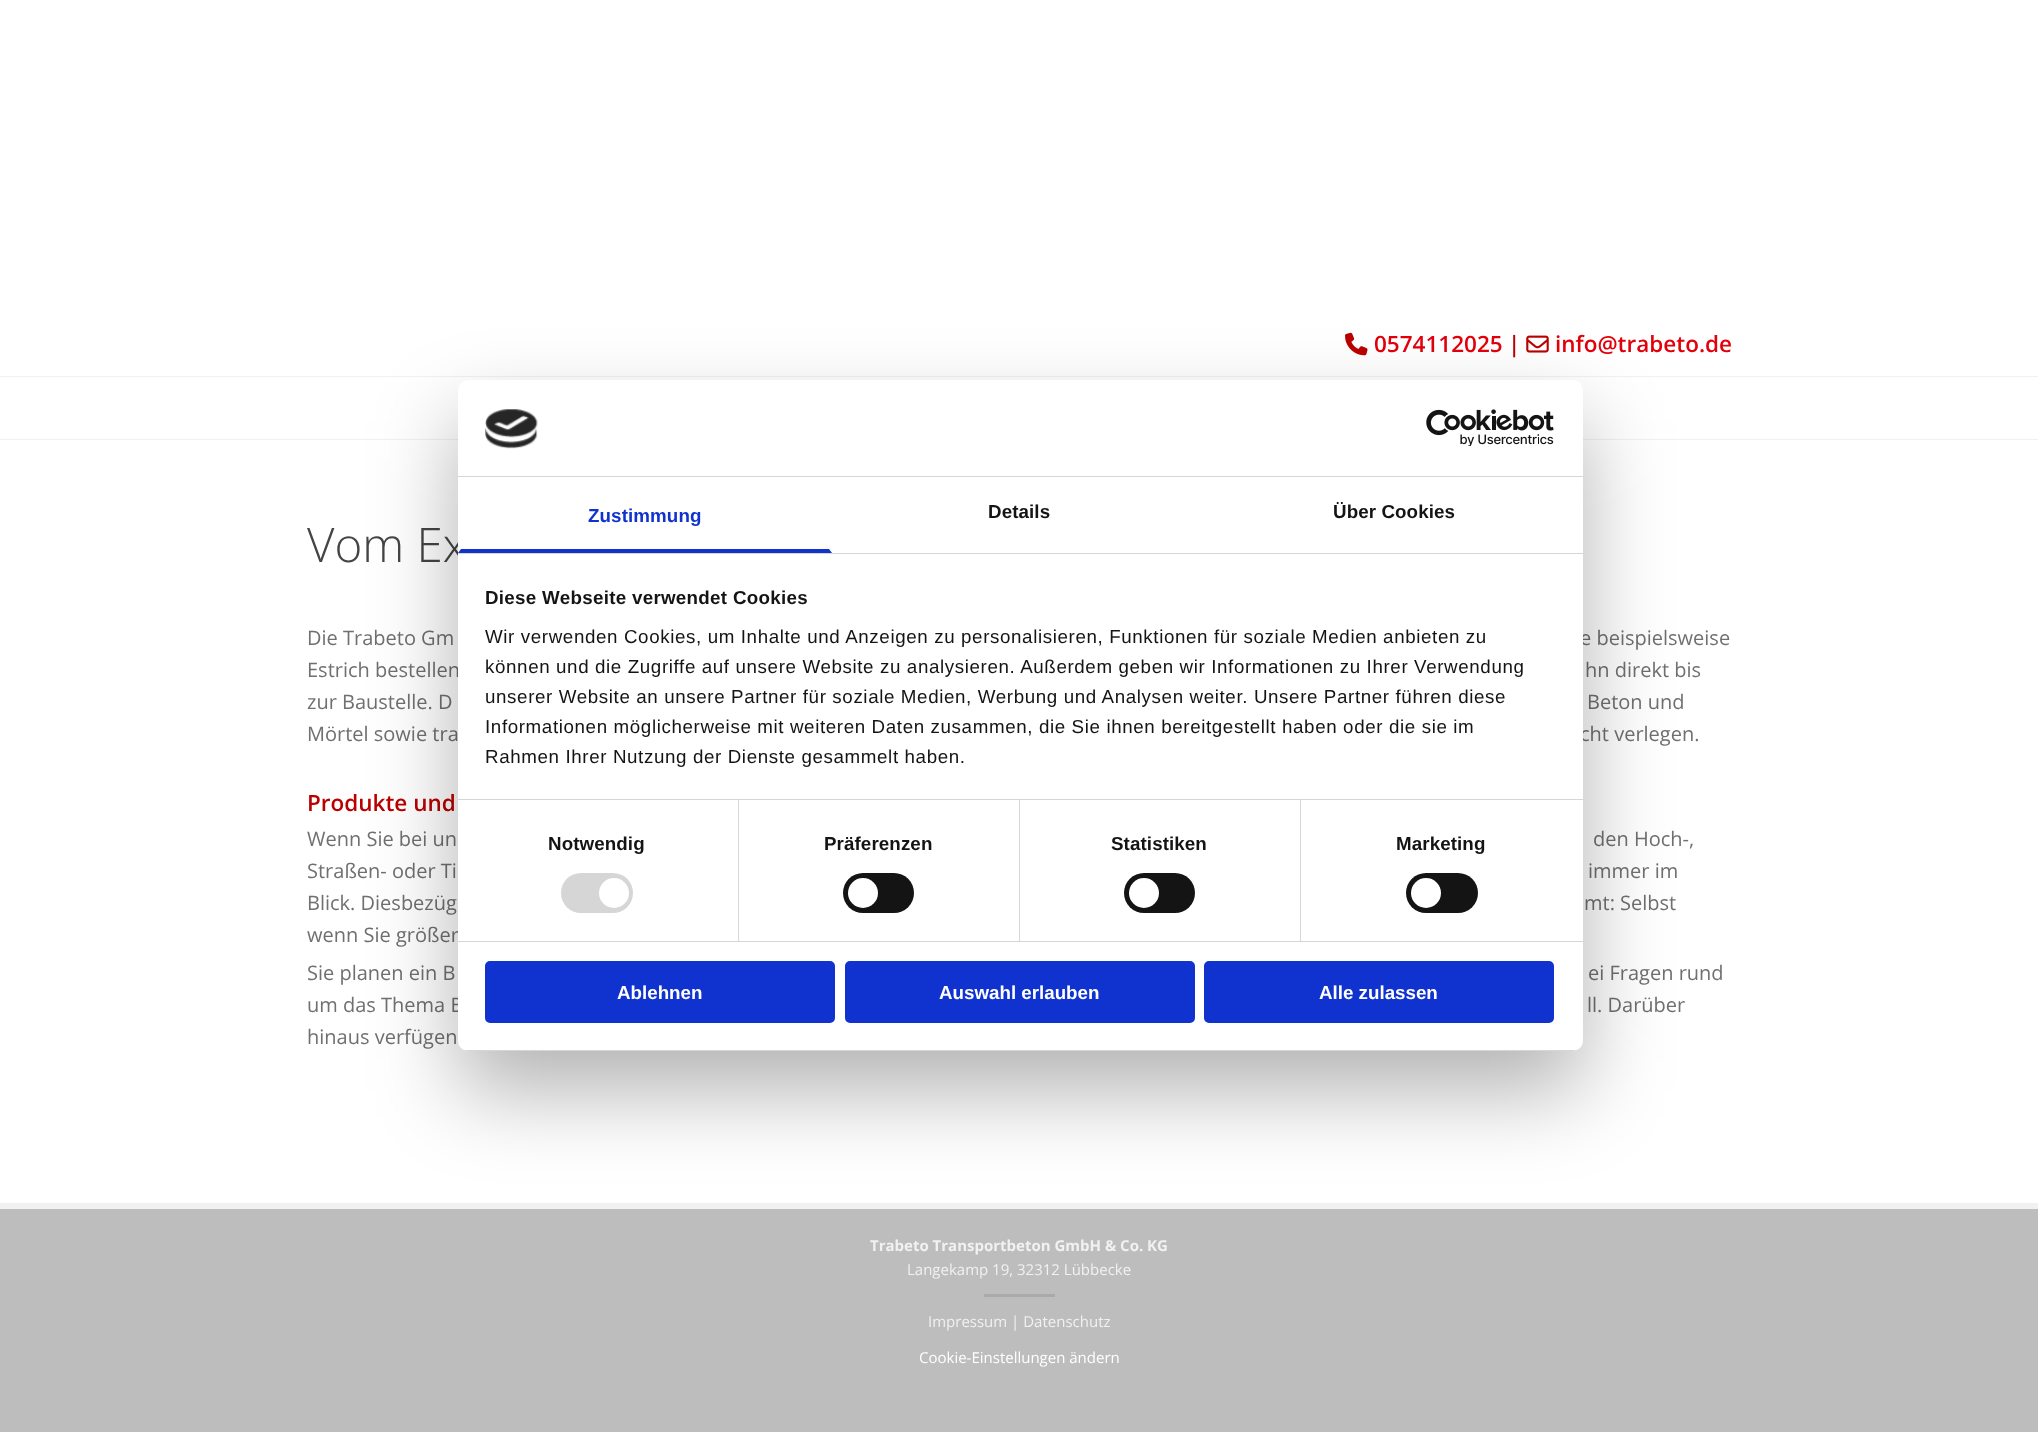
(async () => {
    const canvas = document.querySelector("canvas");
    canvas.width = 2038;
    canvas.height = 1432;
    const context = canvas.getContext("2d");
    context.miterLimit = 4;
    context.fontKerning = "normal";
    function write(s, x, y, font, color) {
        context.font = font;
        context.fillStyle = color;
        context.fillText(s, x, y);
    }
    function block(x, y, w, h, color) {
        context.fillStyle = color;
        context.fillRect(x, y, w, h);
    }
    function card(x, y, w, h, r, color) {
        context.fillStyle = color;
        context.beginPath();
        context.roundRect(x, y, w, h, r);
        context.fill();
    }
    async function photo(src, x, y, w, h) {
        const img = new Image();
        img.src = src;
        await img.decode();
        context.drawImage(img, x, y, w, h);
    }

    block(0, 0, 2038, 1432, "rgb(255, 255, 255)");
    block(0, 376, 2038, 1, "rgb(241, 241, 241)");
    await photo("media/1.png", 1345, 332, 23, 24);
    write("0574112025", 1374, 352, "600 22.5px Open Sans", "rgb(226, 0, 11)");
    write("|", 1508, 352, "600 22.5px Open Sans", "rgb(186, 0, 0)");
    await photo("media/2.png", 1526, 335, 23, 18);
    write("info@trabeto.de", 1555, 352, "600 22.5px Open Sans", "rgb(226, 0, 11)");
    block(0, 439, 2038, 1, "rgb(241, 241, 241)");
    write("Vom Ex", 307, 562, "300 47.5px Open Sans", "rgb(69, 69, 69)");
    write("Die Trabeto Gm", 307, 645, "20px Open Sans", "rgb(112, 112, 112)");
    write("e beispielsweise", 1580, 645, "20px Open Sans", "rgb(112, 112, 112)");
    write("Estrich bestellen", 307, 677, "20px Open Sans", "rgb(112, 112, 112)");
    write("hn direkt bis", 1585, 677, "20px Open Sans", "rgb(112, 112, 112)");
    write("zur Baustelle. D", 307, 709, "20px Open Sans", "rgb(112, 112, 112)");
    write("Beton und", 1587, 709, "20px Open Sans", "rgb(112, 112, 112)");
    write("Mörtel sowie tra", 307, 741, "20px Open Sans", "rgb(112, 112, 112)");
    write("cht verlegen.", 1580, 741, "20px Open Sans", "rgb(112, 112, 112)");
    write("Produkte und", 307, 811, "600 22.5px Open Sans", "rgb(186, 0, 0)");
    write("Wenn Sie bei un", 307, 846, "20px Open Sans", "rgb(112, 112, 112)");
    write("den Hoch-,", 1593, 846, "20px Open Sans", "rgb(112, 112, 112)");
    write("Straßen- oder Ti", 307, 878, "20px Open Sans", "rgb(112, 112, 112)");
    write("immer im", 1588, 878, "20px Open Sans", "rgb(112, 112, 112)");
    write("Blick. Diesbezüg", 307, 910, "20px Open Sans", "rgb(112, 112, 112)");
    write("mt: Selbst", 1584, 910, "20px Open Sans", "rgb(112, 112, 112)");
    write("wenn Sie größer", 307, 942, "20px Open Sans", "rgb(112, 112, 112)");
    write("Sie planen ein B", 307, 980, "20px Open Sans", "rgb(112, 112, 112)");
    write("ei Fragen rund", 1588, 980, "20px Open Sans", "rgb(112, 112, 112)");
    write("um das Thema B", 307, 1012, "20px Open Sans", "rgb(112, 112, 112)");
    write("ll. Darüber", 1587, 1012, "20px Open Sans", "rgb(112, 112, 112)");
    write("hinaus verfügen", 307, 1044, "20px Open Sans", "rgb(112, 112, 112)");
    block(0, 1209, 2038, 223, "rgb(189, 189, 189)");
    block(0, 1203, 2038, 6, "rgb(241, 241, 241)");
    write("Trabeto Transportbeton GmbH & Co. KG", 870, 1251, "bold 15px Open Sans", "rgb(241, 241, 241)");
    write("Langekamp 19, 32312 Lübbecke", 907, 1275, "15px Open Sans", "rgb(241, 241, 241)");
    block(984, 1294, 71, 3, "rgb(170, 170, 170)");
    write("Impressum | Datenschutz", 928, 1327, "15px Open Sans", "rgb(241, 241, 241)");
    write("Cookie-Einstellungen ändern", 919, 1363, "15px Open Sans", "rgb(255, 255, 255)");
    context.fillStyle = "rgba(0, 0, 0, 0.3)";
    context.filter = "blur(42.5px)";
    context.beginPath();
    context.roundRect(458, 420, 1125, 671, 10);
    context.fill();
    context.filter = "none";
    card(458, 380, 1125, 671, 10, "rgb(255, 255, 255)");
    block(458, 476, 1125, 1, "rgb(214, 214, 214)");
    await photo("media/3.png", 485, 409, 53, 40);
    await photo("media/4.png", 1426, 409, 128, 37);
    block(458, 553, 1125, 1, "rgb(214, 214, 214)");
    context.fillStyle = "rgb(16, 50, 207)";
    context.beginPath();
    context.moveTo(832, 553);
    context.lineTo(458, 553);
    context.lineTo(461, 549);
    context.lineTo(829, 549);
    context.closePath();
    context.fill();
    context.letterSpacing = "0.1px";
    write("Zustimmung", 588, 522, "bold 18.75px Liberation Sans", "rgb(16, 50, 207)");
    write("Details", 988, 518, "bold 18.75px Liberation Sans", "rgb(20, 20, 20)");
    write("Über Cookies", 1333, 518, "bold 18.75px Liberation Sans", "rgb(20, 20, 20)");
    block(458, 799, 1125, 1, "rgb(214, 214, 214)");
    context.letterSpacing = "0.3px";
    write("Diese Webseite verwendet Cookies", 485, 604, "bold 18.75px Liberation Sans", "rgb(20, 20, 20)");
    context.letterSpacing = "0.62px";
    write("Wir verwenden Cookies, um Inhalte und Anzeigen zu personalisieren, Funktionen für soziale Medien anbieten zu", 485, 643, "18.75px Liberation Sans", "rgb(20, 20, 20)");
    write("können und die Zugriffe auf unsere Website zu analysieren. Außerdem geben wir Informationen zu Ihrer Verwendung", 485, 673, "18.75px Liberation Sans", "rgb(20, 20, 20)");
    write("unserer Website an unsere Partner für soziale Medien, Werbung und Analysen weiter. Unsere Partner führen diese", 485, 703, "18.75px Liberation Sans", "rgb(20, 20, 20)");
    write("Informationen möglicherweise mit weiteren Daten zusammen, die Sie ihnen bereitgestellt haben oder die sie im", 485, 733, "18.75px Liberation Sans", "rgb(20, 20, 20)");
    write("Rahmen Ihrer Nutzung der Dienste gesammelt haben.", 485, 763, "18.75px Liberation Sans", "rgb(20, 20, 20)");
    block(458, 941, 1125, 1, "rgb(214, 214, 214)");
    block(738, 800, 1, 141, "rgb(214, 214, 214)");
    context.letterSpacing = "0.1px";
    write("Notwendig", 548, 850, "bold 18.75px Liberation Sans", "rgb(20, 20, 20)");
    card(561, 873, 72, 40, 20, "rgb(214, 214, 214)");
    context.fillStyle = "rgb(255, 255, 255)";
    context.beginPath();
    context.arc(614, 893, 15, 0, Math.PI * 2);
    context.fill();
    block(1019, 800, 1, 141, "rgb(214, 214, 214)");
    write("Präferenzen", 824, 850, "bold 18.75px Liberation Sans", "rgb(20, 20, 20)");
    card(843, 873, 71, 40, 20, "rgb(20, 20, 20)");
    context.fillStyle = "rgb(255, 255, 255)";
    context.beginPath();
    context.arc(863, 893, 15, 0, Math.PI * 2);
    context.fill();
    block(1300, 800, 1, 141, "rgb(214, 214, 214)");
    write("Statistiken", 1111, 850, "bold 18.75px Liberation Sans", "rgb(20, 20, 20)");
    card(1124, 873, 71, 40, 20, "rgb(20, 20, 20)");
    context.fillStyle = "rgb(255, 255, 255)";
    context.beginPath();
    context.arc(1144, 893, 15, 0, Math.PI * 2);
    context.fill();
    write("Marketing", 1396, 850, "bold 18.75px Liberation Sans", "rgb(20, 20, 20)");
    card(1406, 873, 72, 40, 20, "rgb(20, 20, 20)");
    context.fillStyle = "rgb(255, 255, 255)";
    context.beginPath();
    context.arc(1426, 893, 15, 0, Math.PI * 2);
    context.fill();
    context.save();
    context.beginPath();
    context.roundRect(458, 380, 1125, 671, 10);
    context.clip();
    block(458, 1050, 1125, 1, "rgb(214, 214, 214)");
    context.restore();
    context.fillStyle = "rgb(16, 50, 207)";
    context.beginPath();
    context.roundRect(486.5, 962.5, 347, 59, 3.5);
    context.fill();
    context.strokeStyle = "rgb(16, 50, 207)";
    context.lineWidth = 3;
    context.stroke();
    context.letterSpacing = "0px";
    write("Ablehnen", 617, 999, "bold 18.75px Liberation Sans", "rgb(255, 255, 255)");
    context.fillStyle = "rgb(16, 50, 207)";
    context.beginPath();
    context.roundRect(846.5, 962.5, 347, 59, 3.5);
    context.fill();
    context.stroke();
    write("Auswahl erlauben", 939, 999, "bold 18.75px Liberation Sans", "rgb(255, 255, 255)");
    context.fillStyle = "rgb(16, 50, 207)";
    context.beginPath();
    context.roundRect(1205.5, 962.5, 347, 59, 3.5);
    context.fill();
    context.stroke();
    write("Alle zulassen", 1319, 999, "bold 18.75px Liberation Sans", "rgb(255, 255, 255)");
})();
